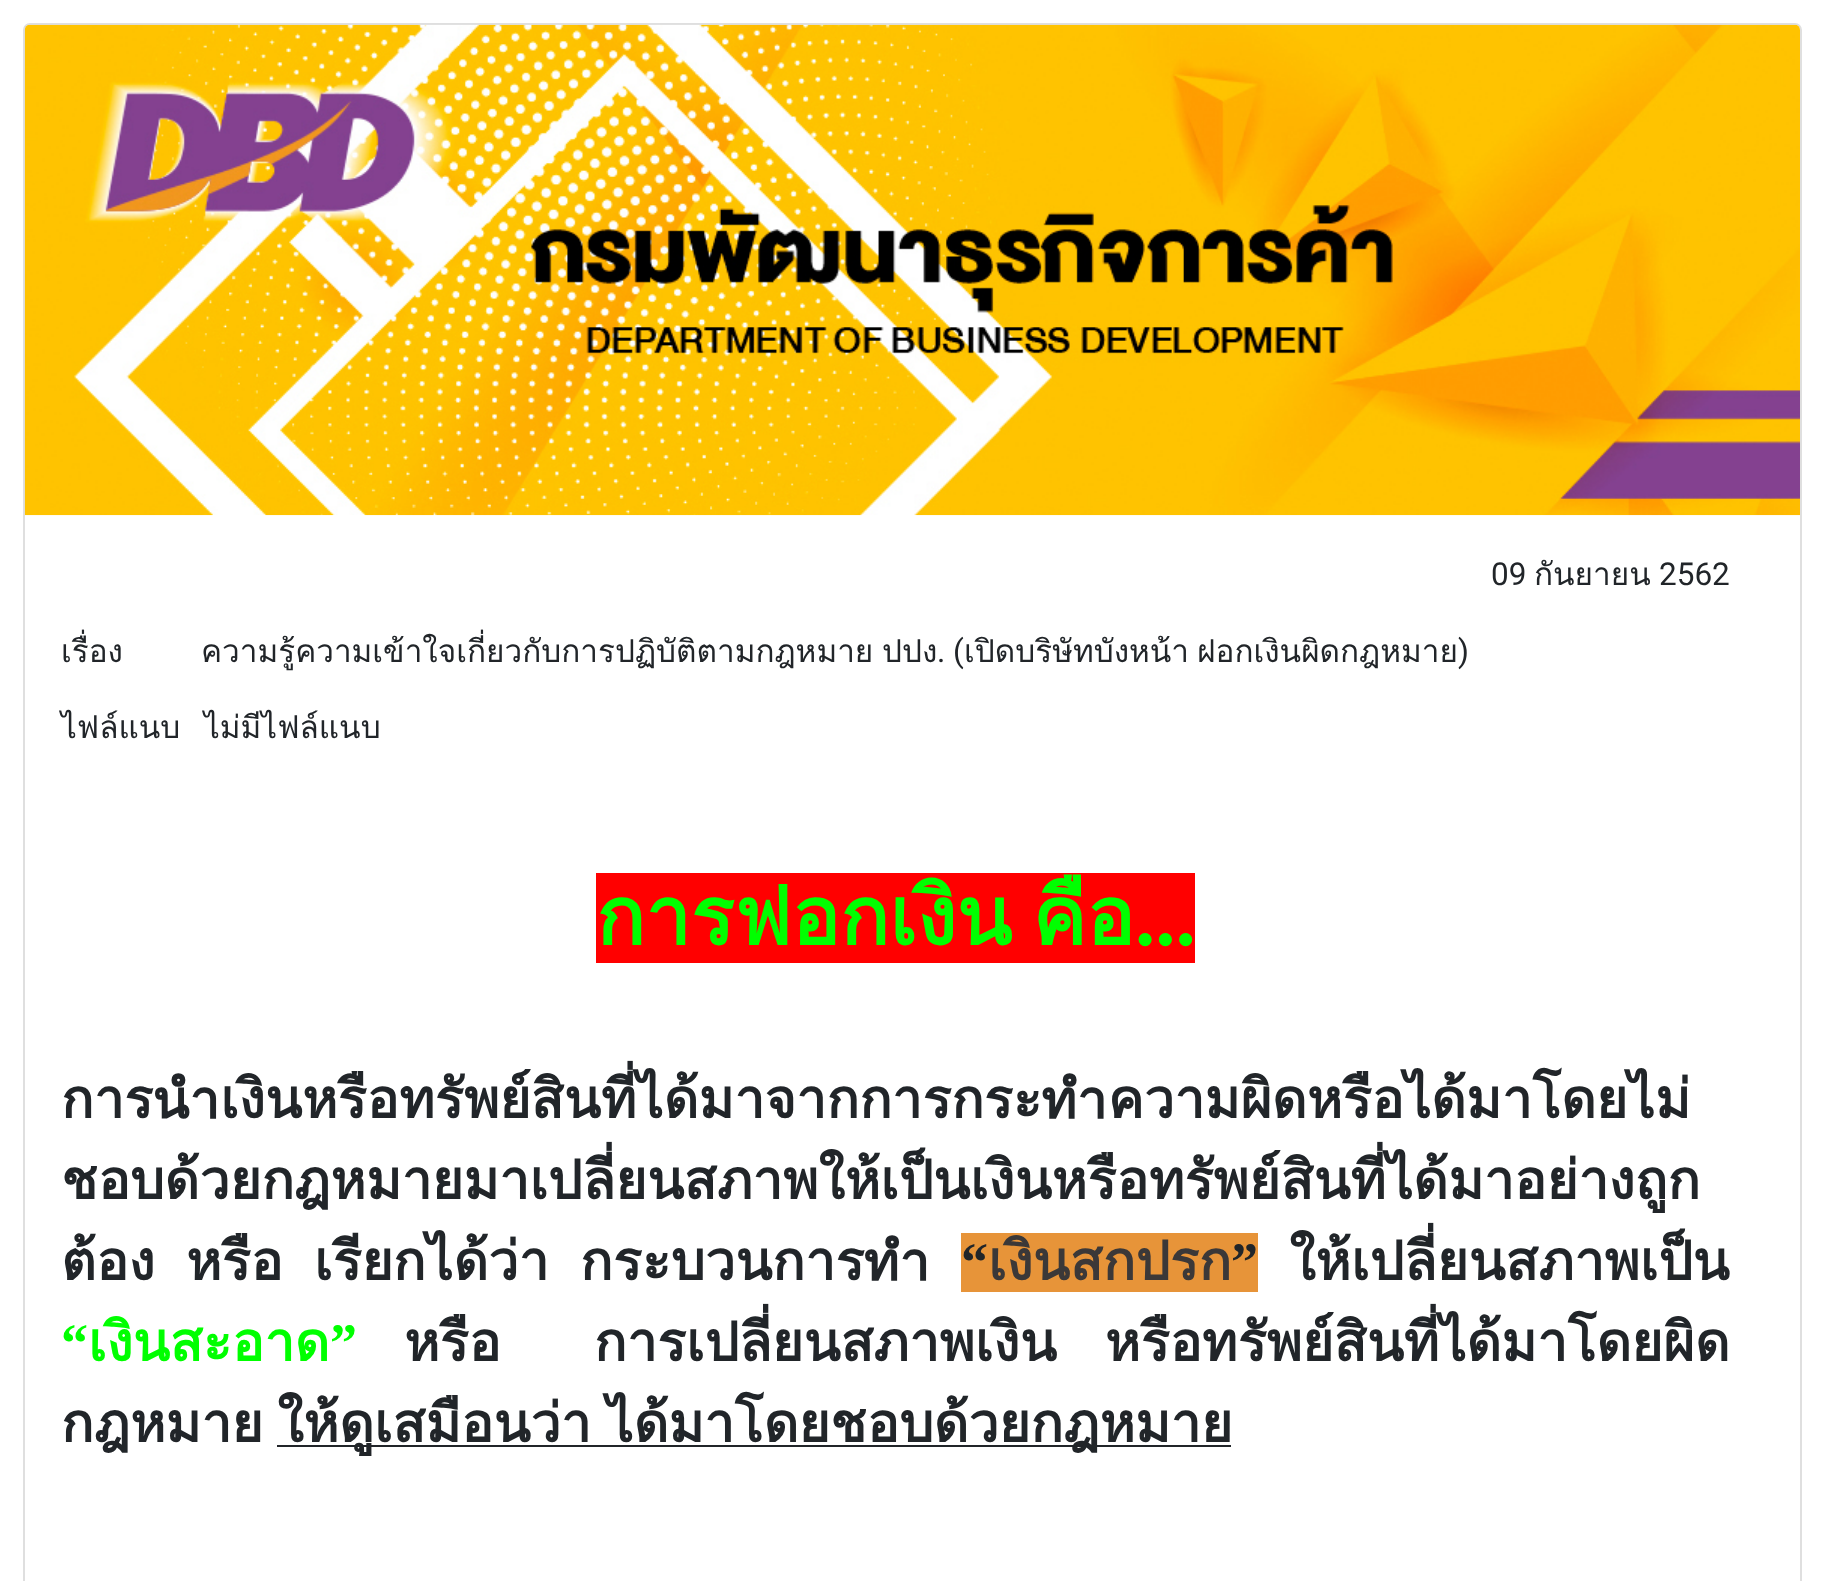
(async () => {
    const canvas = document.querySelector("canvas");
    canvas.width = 1824;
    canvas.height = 1581;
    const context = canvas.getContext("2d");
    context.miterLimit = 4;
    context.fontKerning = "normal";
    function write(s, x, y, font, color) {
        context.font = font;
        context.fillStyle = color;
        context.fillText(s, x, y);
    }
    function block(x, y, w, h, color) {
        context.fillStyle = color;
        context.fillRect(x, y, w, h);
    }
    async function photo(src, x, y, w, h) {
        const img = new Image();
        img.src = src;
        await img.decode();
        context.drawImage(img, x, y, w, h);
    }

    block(0, 0, 1824, 1581, "rgb(255, 255, 255)");
    context.beginPath();
    context.roundRect(24, 24, 1777, 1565, 6);
    context.strokeStyle = "rgb(223, 223, 223)";
    context.lineWidth = 2;
    context.stroke();
    await photo("media/1.png", 24, 24, 1776, 492);
    write("09", 1491, 585, "31.5px Roboto", "rgb(33, 37, 41)");
    write("กันยายน", 1534, 585, "31.5px Loma", "rgb(33, 37, 41)");
    write("2562", 1659, 585, "31.5px Roboto", "rgb(33, 37, 41)");
    write("เรื่อง", 61, 662, "31.5px Loma", "rgb(33, 37, 41)");
    write("ความรู้ความเข้าใจเกี่ยวกับการปฏิบัติตามกฎหมาย", 201, 662, "31.5px Loma", "rgb(33, 37, 41)");
    write("ปปง", 882, 662, "31.5px Loma", "rgb(33, 37, 41)");
    write(". (", 937, 662, "31.5px Roboto", "rgb(33, 37, 41)");
    write("เปิดบริษัทบังหน้า", 964, 662, "31.5px Loma", "rgb(33, 37, 41)");
    write("ฝอกเงินผิดกฎหมาย", 1197, 662, "31.5px Loma", "rgb(33, 37, 41)");
    write(")", 1458, 662, "31.5px Roboto", "rgb(33, 37, 41)");
    write("ไฟล์แนบ", 61, 738, "31.5px Loma", "rgb(33, 37, 41)");
    write("ไม่มีไฟล์แนบ", 204, 738, "31.5px Loma", "rgb(33, 37, 41)");
    block(596, 873, 599, 90, "rgb(255, 0, 0)");
    write("การ", 596, 945, "bold 81px Loma", "rgb(0, 255, 0)");
    context.wordSpacing = "-7px";
    write("ฟอกเงิน คือ", 734, 945, "bold 81px Loma", "rgb(0, 255, 0)");
    context.wordSpacing = "0px";
    write("...", 1135, 945, "bold 81px Liberation Serif", "rgb(0, 255, 0)");
    write("การนำเงินหรือทรัพย์สินที่ได้มาจากการกระทำความผิดหรือได้มาโดยไม่", 61, 1118, "bold 54px Loma", "rgb(33, 37, 41)");
    write("ชอบด้วยกฎหมายมาเปลี่ยนสภาพให้เป็นเงินหรือทรัพย์สินที่ได้มาอย่างถูก", 61, 1199, "bold 54px Loma", "rgb(33, 37, 41)");
    write("ต้อง", 61, 1280, "bold 54px Loma", "rgb(33, 37, 41)");
    write("หรือ", 186, 1280, "bold 54px Loma", "rgb(33, 37, 41)");
    write("เรียก", 314, 1280, "bold 54px Loma", "rgb(33, 37, 41)");
    context.wordSpacing = "13px";
    write("ได้ว่า กระบวนการทำ", 426, 1280, "bold 54px Loma", "rgb(33, 37, 41)");
    block(961, 1233, 297, 59, "rgb(231, 148, 57)");
    context.wordSpacing = "0px";
    write("“", 961, 1280, "bold 54px Liberation Serif", "rgb(33, 37, 41)");
    write("เงินสกปรก", 988, 1280, "bold 54px Loma", "rgb(59, 56, 56)");
    write("”", 1231, 1280, "bold 54px Liberation Serif", "rgb(33, 37, 41)");
    write("ให้เปลี่ยนสภาพเป็น", 1289, 1280, "bold 54px Loma", "rgb(33, 37, 41)");
    write("“", 61, 1361, "bold 54px Liberation Serif", "rgb(0, 255, 0)");
    write("เงินสะอาด", 88, 1361, "bold 54px Loma", "rgb(0, 255, 0)");
    write("”", 330, 1361, "bold 54px Liberation Serif", "rgb(0, 255, 0)");
    write("หรือ", 404, 1361, "bold 54px Loma", "rgb(33, 37, 41)");
    context.wordSpacing = "30px";
    write("การเปลี่ยนสภาพเงิน หรือทรัพย์สินที่ได้มาโดยผิด", 594, 1361, "bold 54px Loma", "rgb(33, 37, 41)");
    context.wordSpacing = "0px";
    write("กฎหมาย", 61, 1442, "bold 54px Loma", "rgb(33, 37, 41)");
    block(277, 1445, 954, 2, "rgb(33, 37, 41)");
    context.wordSpacing = "-3px";
    write("ให้ดูเสมือนว่า ได้มาโดยชอบด้วยกฎหมาย", 277, 1442, "bold 54px Loma", "rgb(33, 37, 41)");
})();
